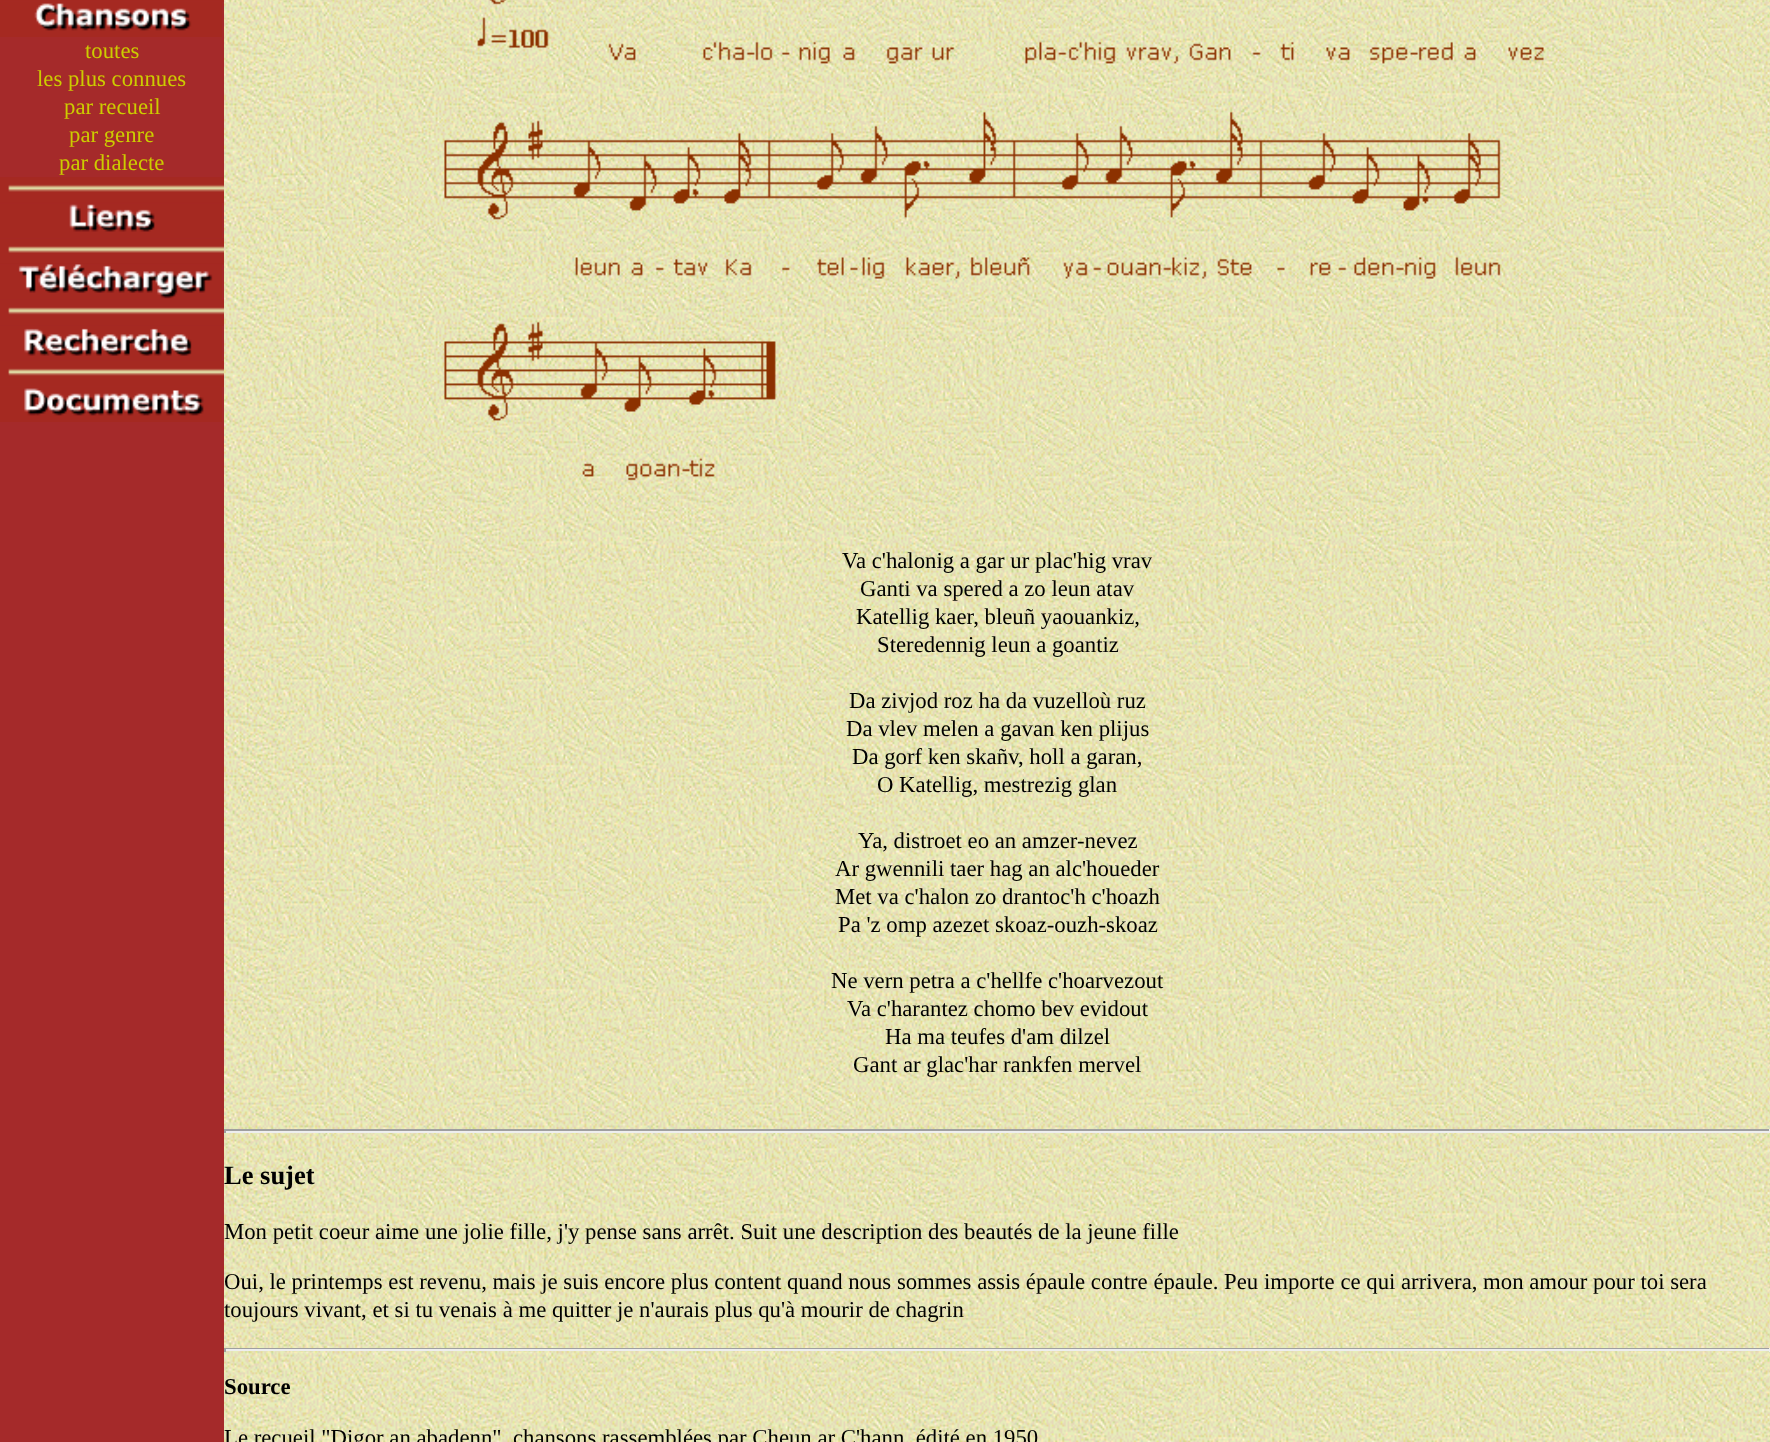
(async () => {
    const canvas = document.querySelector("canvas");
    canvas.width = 1770;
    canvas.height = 1442;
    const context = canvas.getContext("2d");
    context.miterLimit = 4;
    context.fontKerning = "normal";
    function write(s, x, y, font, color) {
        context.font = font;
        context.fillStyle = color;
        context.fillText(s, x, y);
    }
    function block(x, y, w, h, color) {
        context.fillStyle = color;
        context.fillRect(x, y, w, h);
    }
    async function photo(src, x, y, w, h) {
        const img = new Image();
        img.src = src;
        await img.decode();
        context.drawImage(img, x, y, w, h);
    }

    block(0, 0, 1770, 1442, "rgb(255, 255, 255)");
    await photo("media/1.png", 224, 0, 1546, 1442);
    block(0, 1, 224, 1441, "rgb(165, 42, 42)");
    await photo("media/2.png", 0, 0, 224, 2);
    await photo("media/3.png", 0, 2, 222, 35);
    write("toutes", 85, 58, "22.75px Liberation Serif", "rgb(204, 204, 0)");
    write("les plus connues", 37, 86, "22.75px Liberation Serif", "rgb(204, 204, 0)");
    write("par recueil", 64, 114, "22.75px Liberation Serif", "rgb(204, 204, 0)");
    write("par genre", 69, 142, "22.75px Liberation Serif", "rgb(204, 204, 0)");
    write("par dialecte", 59, 170, "22.75px Liberation Serif", "rgb(204, 204, 0)");
    await photo("media/4.png", 0, 177, 224, 26);
    await photo("media/5.png", 0, 203, 222, 35);
    await photo("media/6.png", 0, 238, 224, 27);
    await photo("media/7.png", 0, 264, 222, 36);
    await photo("media/8.png", 0, 299, 224, 27);
    await photo("media/9.png", 0, 326, 222, 35);
    await photo("media/10.png", 0, 361, 224, 26);
    await photo("media/11.png", 0, 387, 222, 35);
    await photo("media/12.png", 444, 0, 1100, 481);
    write("Va c'halonig a gar ur plac'hig vrav", 842, 568, "22.75px Liberation Serif", "rgb(0, 0, 0)");
    write("Ganti va spered a zo leun atav", 860, 596, "22.75px Liberation Serif", "rgb(0, 0, 0)");
    write("Katellig kaer, bleuñ yaouankiz,", 856, 624, "22.75px Liberation Serif", "rgb(0, 0, 0)");
    write("Steredennig leun a goantiz", 877, 652, "22.75px Liberation Serif", "rgb(0, 0, 0)");
    write("Da zivjod roz ha da vuzelloù ruz", 849, 708, "22.75px Liberation Serif", "rgb(0, 0, 0)");
    write("Da vlev melen a gavan ken plijus", 846, 736, "22.75px Liberation Serif", "rgb(0, 0, 0)");
    write("Da gorf ken skañv, holl a garan,", 852, 764, "22.75px Liberation Serif", "rgb(0, 0, 0)");
    write("O Katellig, mestrezig glan", 877, 792, "22.75px Liberation Serif", "rgb(0, 0, 0)");
    write("Ya, distroet eo an amzer-nevez", 858, 848, "22.75px Liberation Serif", "rgb(0, 0, 0)");
    write("Ar gwennili taer hag an alc'houeder", 835, 876, "22.75px Liberation Serif", "rgb(0, 0, 0)");
    write("Met va c'halon zo drantoc'h c'hoazh", 835, 904, "22.75px Liberation Serif", "rgb(0, 0, 0)");
    write("Pa 'z omp azezet skoaz-ouzh-skoaz", 838, 932, "22.75px Liberation Serif", "rgb(0, 0, 0)");
    write("Ne vern petra a c'hellfe c'hoarvezout", 831, 988, "22.75px Liberation Serif", "rgb(0, 0, 0)");
    write("Va c'harantez chomo bev evidout", 847, 1016, "22.75px Liberation Serif", "rgb(0, 0, 0)");
    write("Ha ma teufes d'am dilzel", 885, 1044, "22.75px Liberation Serif", "rgb(0, 0, 0)");
    write("Gant ar glac'har rankfen mervel", 853, 1072, "22.75px Liberation Serif", "rgb(0, 0, 0)");
    block(224, 1129, 1546, 2, "rgb(159, 159, 159)");
    block(1769, 1129, 1, 4, "rgb(238, 238, 238)");
    block(224, 1131, 1546, 2, "rgb(238, 238, 238)");
    block(224, 1129, 2, 4, "rgb(159, 159, 159)");
    write("Le sujet", 224, 1184, "bold 26.5px Liberation Serif", "rgb(0, 0, 0)");
    write("Mon petit coeur aime une jolie fille, j'y pense sans arrêt. Suit une description des beautés de la jeune fille", 224, 1239, "22.75px Liberation Serif", "rgb(0, 0, 0)");
    write("Oui, le printemps est revenu, mais je suis encore plus content quand nous sommes assis épaule contre épaule. Peu importe ce qui arrivera, mon amour pour toi sera", 224, 1289, "22.75px Liberation Serif", "rgb(0, 0, 0)");
    write("toujours vivant, et si tu venais à me quitter je n'aurais plus qu'à mourir de chagrin", 224, 1317, "22.75px Liberation Serif", "rgb(0, 0, 0)");
    block(224, 1348, 1546, 1, "rgb(159, 159, 159)");
    block(1769, 1348, 1, 4, "rgb(238, 238, 238)");
    block(224, 1349, 1546, 2, "rgb(238, 238, 238)");
    block(224, 1348, 2, 4, "rgb(159, 159, 159)");
    write("Source", 224, 1394, "bold 22.75px Liberation Serif", "rgb(0, 0, 0)");
    write("Le recueil \"Digor an abadenn\", chansons rassemblées par Cheun ar C'hann, édité en 1950", 224, 1445, "22.75px Liberation Serif", "rgb(0, 0, 0)");
})();
